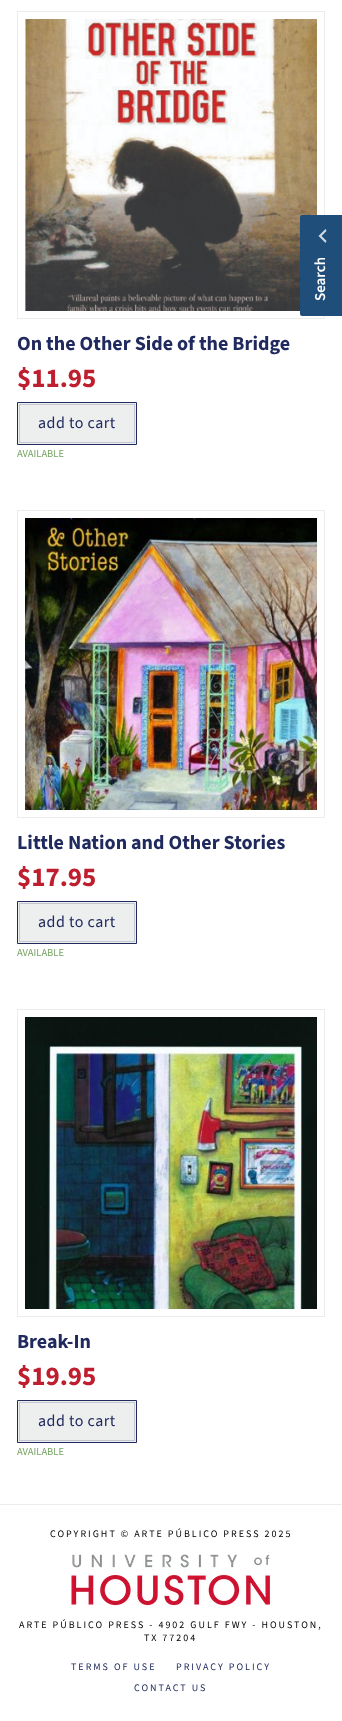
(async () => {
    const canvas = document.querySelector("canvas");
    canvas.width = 342;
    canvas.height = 1721;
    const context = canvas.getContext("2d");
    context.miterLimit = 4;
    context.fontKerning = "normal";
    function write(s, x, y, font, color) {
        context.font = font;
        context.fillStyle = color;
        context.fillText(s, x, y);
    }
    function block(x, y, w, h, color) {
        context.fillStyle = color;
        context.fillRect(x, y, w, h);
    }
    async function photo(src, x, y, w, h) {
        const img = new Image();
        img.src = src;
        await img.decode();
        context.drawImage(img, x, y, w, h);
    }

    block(0, 0, 342, 1721, "rgb(255, 255, 255)");
    context.strokeStyle = "rgb(236, 236, 236)";
    context.strokeRect(17.5, 11.5, 307, 307);
    await photo("media/2.png", 25, 19, 292, 292);
    context.fillStyle = "rgb(32, 78, 123)";
    context.beginPath();
    context.moveTo(300, 314);
    context.lineTo(300, 217);
    context.bezierCurveTo(300, 216, 301, 215, 302, 215);
    context.lineTo(342, 215);
    context.lineTo(342, 316);
    context.lineTo(302, 316);
    context.bezierCurveTo(301, 316, 300, 315, 300, 314);
    context.closePath();
    context.fill();
    await photo("media/1.png", 318, 229, 9, 14);
    context.font = "600 15px 'Source Sans 3'";
    context.fillStyle = "rgb(255, 255, 255)";
    context.save();
    context.translate(325, 301);
    context.rotate(-90 * Math.PI / 180);
    context.fillText("Search", 0, 0);
    context.restore();
    write("On the Other Side of the Bridge", 17, 350, "bold 20px 'Source Sans 3'", "rgb(33, 42, 94)");
    write("$11.95", 17, 387, "bold 27px 'Source Sans 3'", "rgb(191, 30, 46)");
    context.fillStyle = "rgb(237, 238, 238)";
    context.beginPath();
    context.rect(17.5, 402.5, 119, 42);
    context.fill();
    context.strokeStyle = "rgb(33, 42, 94)";
    context.stroke();
    context.strokeStyle = "rgb(196, 199, 209)";
    context.strokeRect(19.5, 404.5, 115, 38);
    context.letterSpacing = "0.5px";
    write("add to cart", 38, 428, "16px 'Source Sans 3'", "rgb(33, 42, 94)");
    context.letterSpacing = "0px";
    write("AVAILABLE", 17, 457, "10.5px 'Source Sans 3'", "rgb(119, 164, 100)");
    context.strokeStyle = "rgb(236, 236, 236)";
    context.strokeRect(17.5, 510.5, 307, 307);
    await photo("media/3.png", 25, 518, 292, 292);
    write("Little Nation and Other Stories", 17, 849, "bold 20px 'Source Sans 3'", "rgb(33, 42, 94)");
    write("$17.95", 17, 886, "bold 27px 'Source Sans 3'", "rgb(191, 30, 46)");
    context.fillStyle = "rgb(237, 238, 238)";
    context.beginPath();
    context.rect(17.5, 901.5, 119, 42);
    context.fill();
    context.strokeStyle = "rgb(33, 42, 94)";
    context.stroke();
    context.strokeStyle = "rgb(196, 199, 209)";
    context.strokeRect(19.5, 903.5, 115, 38);
    context.letterSpacing = "0.5px";
    write("add to cart", 38, 927, "16px 'Source Sans 3'", "rgb(33, 42, 94)");
    context.letterSpacing = "0px";
    write("AVAILABLE", 17, 956, "10.5px 'Source Sans 3'", "rgb(119, 164, 100)");
    context.strokeStyle = "rgb(236, 236, 236)";
    context.strokeRect(17.5, 1009.5, 307, 307);
    await photo("media/4.png", 25, 1017, 292, 292);
    write("Break-In", 17, 1348, "bold 20px 'Source Sans 3'", "rgb(33, 42, 94)");
    write("$19.95", 17, 1385, "bold 27px 'Source Sans 3'", "rgb(191, 30, 46)");
    context.fillStyle = "rgb(237, 238, 238)";
    context.beginPath();
    context.rect(17.5, 1400.5, 119, 42);
    context.fill();
    context.strokeStyle = "rgb(33, 42, 94)";
    context.stroke();
    context.strokeStyle = "rgb(196, 199, 209)";
    context.strokeRect(19.5, 1402.5, 115, 38);
    context.letterSpacing = "0.5px";
    write("add to cart", 38, 1426, "16px 'Source Sans 3'", "rgb(33, 42, 94)");
    context.letterSpacing = "0px";
    write("AVAILABLE", 17, 1455, "10.5px 'Source Sans 3'", "rgb(119, 164, 100)");
    block(0, 1504, 342, 1, "rgb(236, 236, 236)");
    context.letterSpacing = "2px";
    write("COPYRIGHT © ARTE PÚBLICO PRESS 2025", 50, 1537, "10px 'Source Sans 3'", "rgb(0, 0, 0)");
    await photo("media/5.png", 71, 1554, 199, 52);
    write("ARTE PÚBLICO PRESS - 4902 GULF FWY - HOUSTON,", 19, 1628, "10px 'Source Sans 3'", "rgb(0, 0, 0)");
    write("TX 77204", 144, 1641, "10px 'Source Sans 3'", "rgb(0, 0, 0)");
    write("TERMS OF USE", 71, 1670, "10px 'Source Sans 3'", "rgb(33, 42, 94)");
    write("PRIVACY POLICY", 176, 1670, "10px 'Source Sans 3'", "rgb(33, 42, 94)");
    write("CONTACT US", 134, 1691, "10px 'Source Sans 3'", "rgb(33, 42, 94)");
})();
